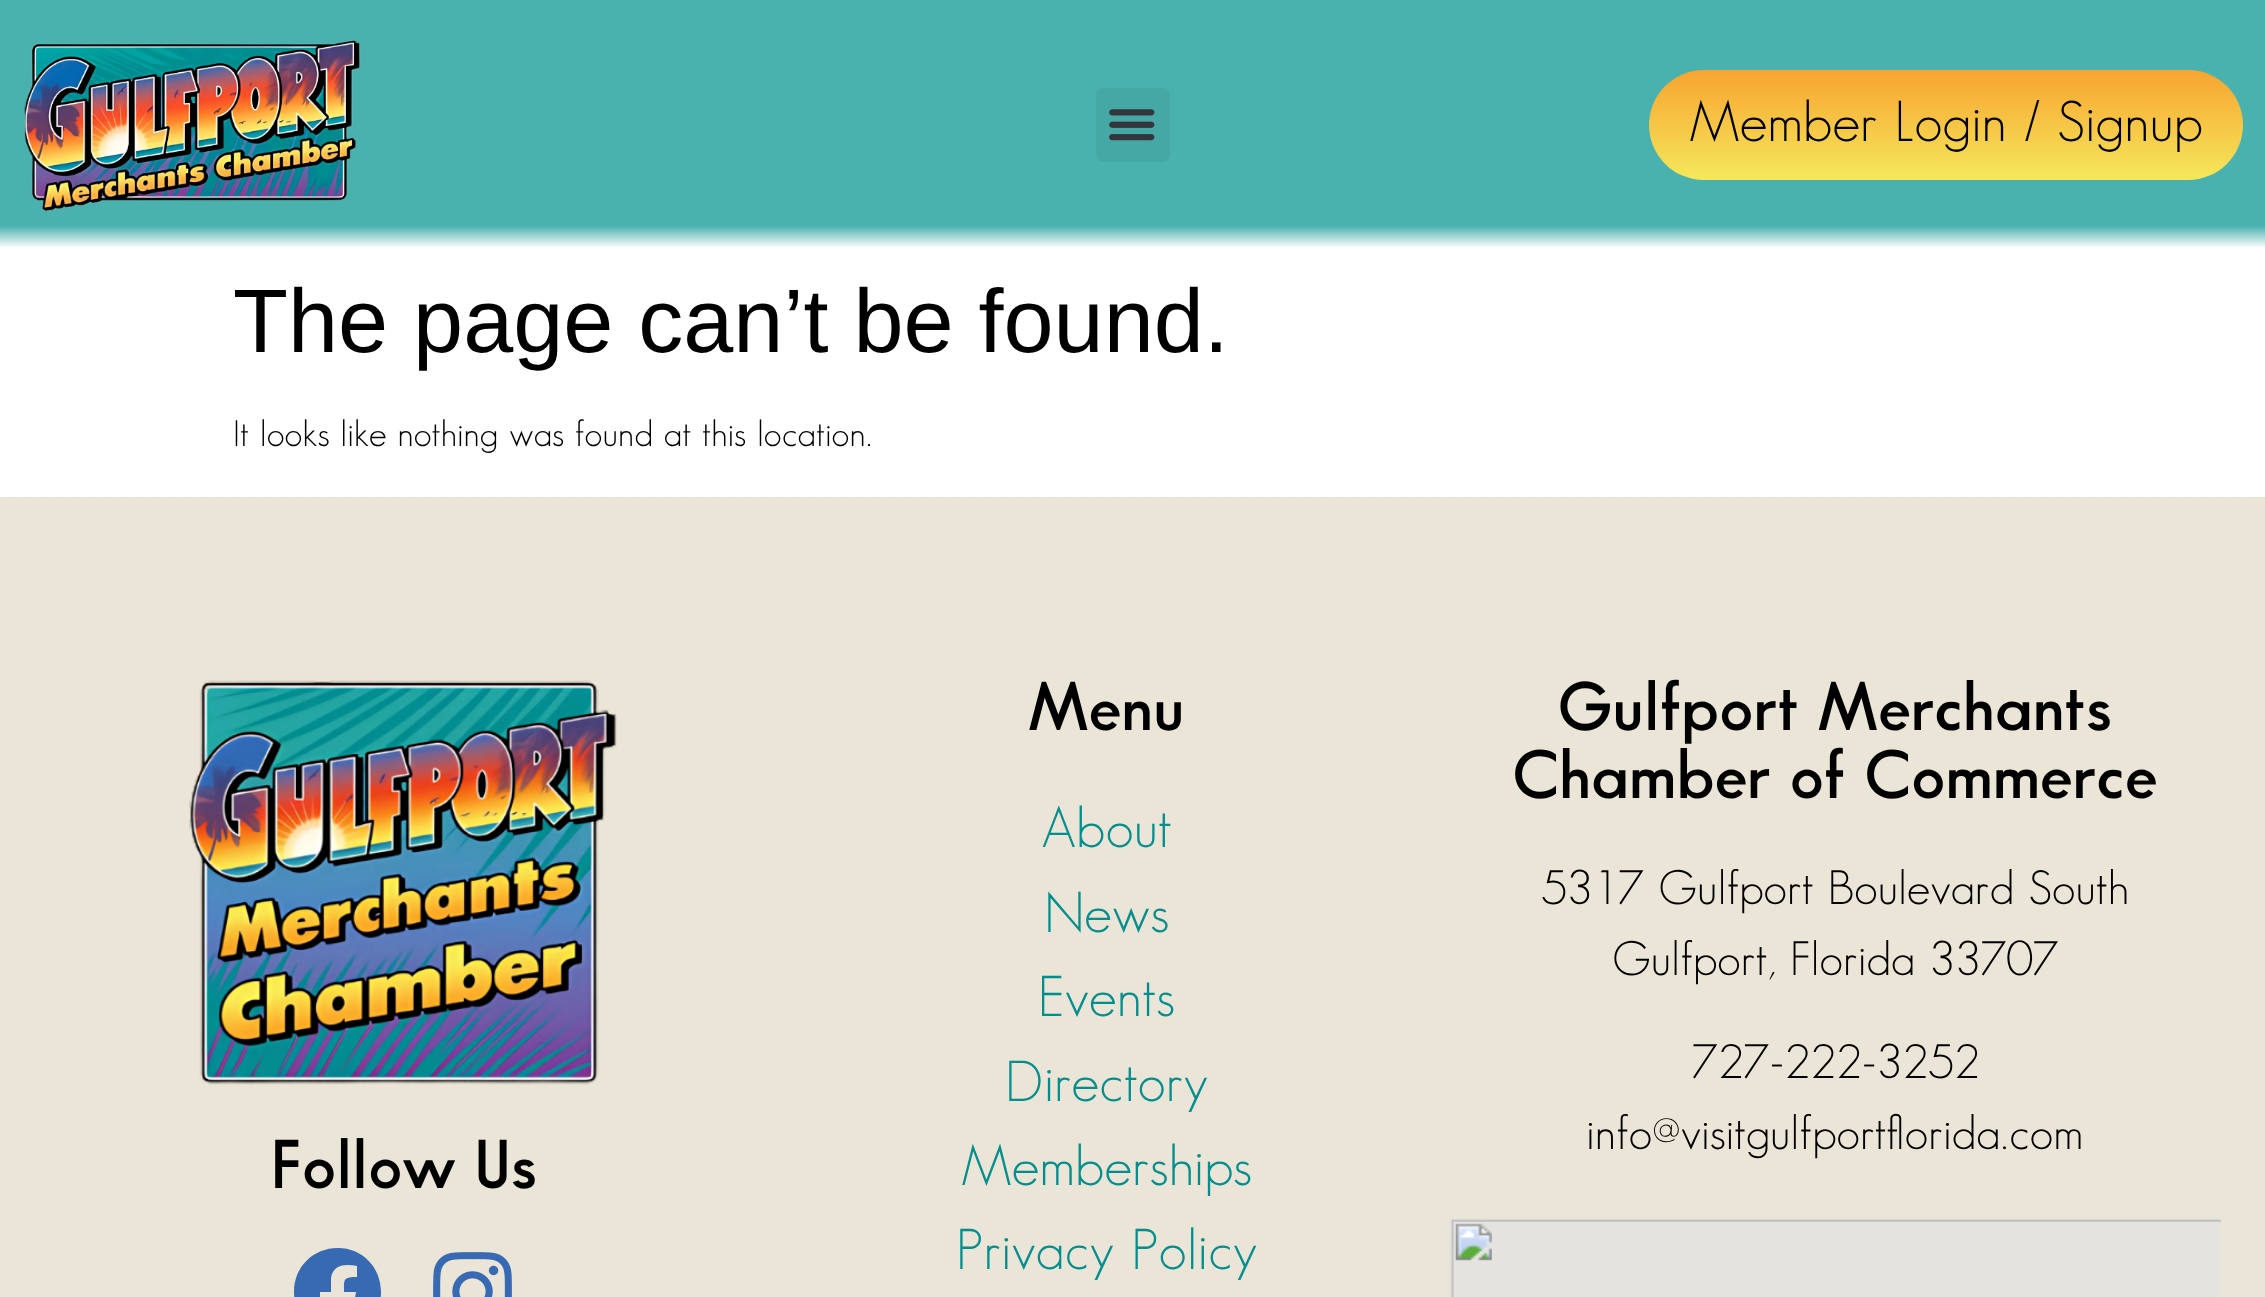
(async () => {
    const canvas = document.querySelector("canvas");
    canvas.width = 2265;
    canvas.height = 1297;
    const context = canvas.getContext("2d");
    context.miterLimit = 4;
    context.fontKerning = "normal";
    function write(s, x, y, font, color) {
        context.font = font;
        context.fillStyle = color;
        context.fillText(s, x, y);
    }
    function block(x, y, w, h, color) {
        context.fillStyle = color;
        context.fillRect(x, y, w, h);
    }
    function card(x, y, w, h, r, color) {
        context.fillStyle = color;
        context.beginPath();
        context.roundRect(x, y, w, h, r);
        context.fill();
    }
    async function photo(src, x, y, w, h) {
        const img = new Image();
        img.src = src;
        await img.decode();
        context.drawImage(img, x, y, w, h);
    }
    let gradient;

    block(0, 0, 2265, 1297, "rgb(255, 255, 255)");
    gradient = context.createLinearGradient(1133, 0, 1133, 248);
    gradient.addColorStop(0.91, "rgb(73, 177, 174)");
    gradient.addColorStop(1, "rgb(255, 255, 255)");
    context.fillStyle = gradient;
    context.fillRect(0, 0, 2265, 248);
    await photo("media/1.png", 24, 40, 337, 172);
    card(1096, 88, 74, 74, 7, "rgb(69, 168, 165)");
    await photo("media/2.png", 1109, 109, 46, 32);
    gradient = context.createLinearGradient(1946, 70, 1946, 180);
    gradient.addColorStop(0, "rgb(247, 164, 49)");
    gradient.addColorStop(1, "rgb(245, 232, 90)");
    context.fillStyle = gradient;
    context.beginPath();
    context.roundRect(1649, 70, 594, 110, 55);
    context.fill();
    write("Member Login / Signup", 1689, 141, "500 56.25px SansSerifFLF", "rgb(0, 0, 0)");
    write("The page can’t be found.", 233, 352, "90px Liberation Sans", "rgb(0, 0, 0)");
    write("It looks like nothing was found at this location.", 233, 446, "500 36px SansSerifFLF", "rgb(0, 0, 0)");
    block(0, 497, 2265, 800, "rgb(234, 229, 214)");
    await photo("media/3.png", 189, 680, 428, 405);
    write("Follow Us", 271, 1188, "600 67.5px SansSerifFLF", "rgb(0, 0, 0)");
    context.fillStyle = "rgb(56, 106, 179)";
    context.beginPath();
    context.moveTo(381, 1292);
    context.bezierCurveTo(381, 1267, 362, 1248, 338, 1248);
    context.bezierCurveTo(313, 1248, 294, 1267, 294, 1292);
    context.bezierCurveTo(294, 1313, 310, 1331, 331, 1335);
    context.lineTo(331, 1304);
    context.lineTo(320, 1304);
    context.lineTo(320, 1292);
    context.lineTo(331, 1292);
    context.lineTo(331, 1278);
    context.bezierCurveTo(333, 1264, 346, 1264, 357, 1266);
    context.lineTo(357, 1277);
    context.bezierCurveTo(343, 1277, 344, 1279, 344, 1292);
    context.lineTo(356, 1292);
    context.lineTo(354, 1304);
    context.lineTo(344, 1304);
    context.lineTo(344, 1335);
    context.bezierCurveTo(365, 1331, 381, 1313, 381, 1292);
    context.closePath();
    context.fill();
    await photo("media/4.png", 433, 1252, 79, 45);
    write("Menu", 1028, 730, "600 67.5px SansSerifFLF", "rgb(0, 0, 0)");
    write("About", 1041, 847, "500 56.25px SansSerifFLF", "rgb(0, 141, 142)");
    write("News", 1044, 932, "500 56.25px SansSerifFLF", "rgb(0, 141, 142)");
    write("Events", 1038, 1016, "500 56.25px SansSerifFLF", "rgb(0, 141, 142)");
    write("Directory", 1005, 1101, "500 56.25px SansSerifFLF", "rgb(0, 141, 142)");
    write("Memberships", 961, 1185, "500 56.25px SansSerifFLF", "rgb(0, 141, 142)");
    write("Privacy Policy", 956, 1269, "500 56.25px SansSerifFLF", "rgb(0, 141, 142)");
    write("Gulfport Merchants", 1558, 730, "600 67.5px SansSerifFLF", "rgb(0, 0, 0)");
    write("Chamber of Commerce", 1512, 798, "600 67.5px SansSerifFLF", "rgb(0, 0, 0)");
    write("5317 Gulfport Boulevard South", 1541, 904, "500 47.25px SansSerifFLF", "rgb(0, 0, 0)");
    write("Gulfport, Florida 33707", 1612, 975, "500 47.25px SansSerifFLF", "rgb(0, 0, 0)");
    write("727-222-3252", 1692, 1078, "500 47.25px SansSerifFLF", "rgb(0, 0, 0)");
    write("info@visitgulfportflorida.com", 1586, 1149, "500 47.25px SansSerifFLF", "rgb(0, 0, 0)");
    await photo("media/5.png", 1449, 1218, 772, 79);
})();
